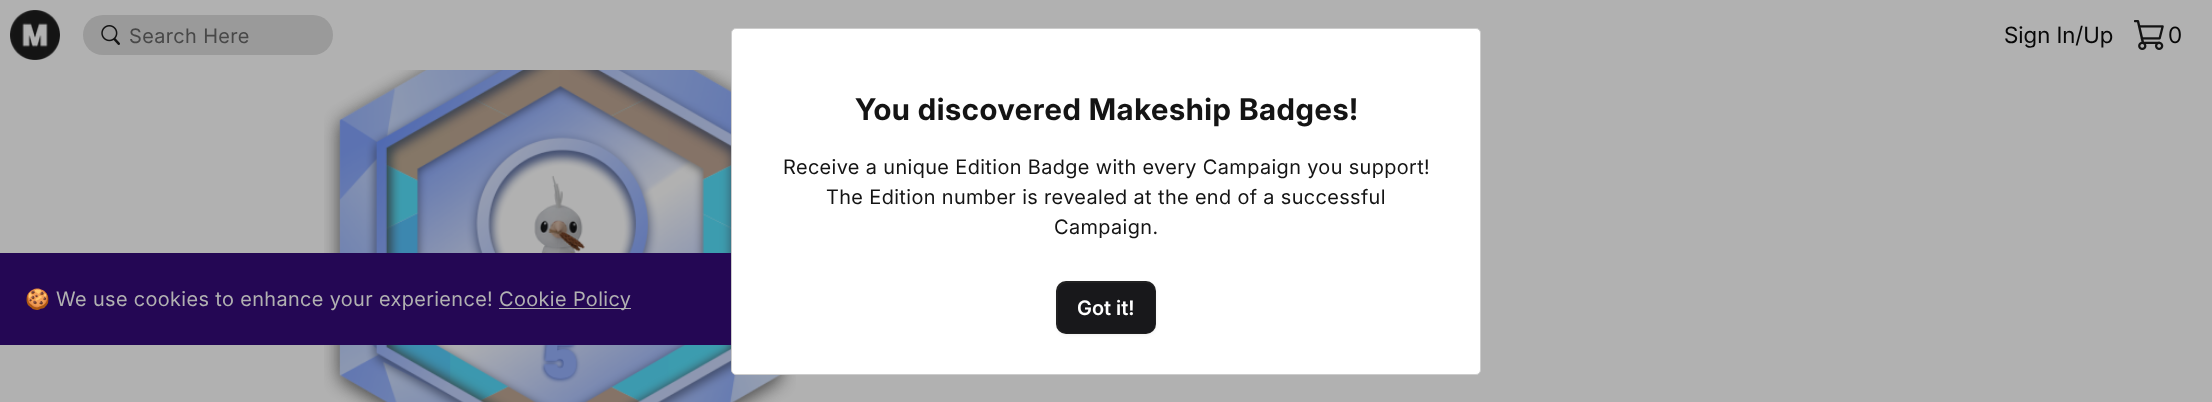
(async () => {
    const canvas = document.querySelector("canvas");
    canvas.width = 2212;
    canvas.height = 402;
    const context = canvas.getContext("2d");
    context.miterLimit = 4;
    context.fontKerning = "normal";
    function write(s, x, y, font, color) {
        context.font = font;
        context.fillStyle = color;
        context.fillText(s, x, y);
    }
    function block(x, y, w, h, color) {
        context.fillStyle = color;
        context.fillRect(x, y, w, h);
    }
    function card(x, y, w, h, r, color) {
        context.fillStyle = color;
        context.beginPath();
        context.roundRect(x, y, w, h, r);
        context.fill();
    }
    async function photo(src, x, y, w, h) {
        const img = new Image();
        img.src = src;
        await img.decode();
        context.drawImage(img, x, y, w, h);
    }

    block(0, 0, 2212, 402, "rgb(177, 177, 177)");
    await photo("media/1.png", 10, 10, 50, 50);
    card(83, 15, 250, 40, 20, "rgb(154, 154, 154)");
    await photo("media/2.png", 101, 25, 19, 20);
    context.letterSpacing = "0.4px";
    write("Search Here", 129, 43, "20px Inter", "rgb(72, 72, 72)");
    context.letterSpacing = "0px";
    write("Sign In/Up", 2004, 43, "22.5px 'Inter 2'", "rgb(7, 7, 7)");
    await photo("media/3.png", 2134, 20, 30, 30);
    write("0", 2168, 43, "22.5px 'Inter 2'", "rgb(7, 7, 7)");
    await photo("media/4.png", 324, 70, 472, 332);
    block(0, 253, 731, 92, "rgb(36, 7, 84)");
    context.letterSpacing = "0.4px";
    write("🍪", 25, 306, "20px Noto Color Emoji", "rgb(177, 177, 177)");
    write("We use cookies to enhance your experience!", 56, 306, "20px Inter", "rgb(177, 177, 177)");
    block(499, 308, 132, 1, "rgb(177, 177, 177)");
    write("Cookie Policy", 499, 306, "20px Inter", "rgb(177, 177, 177)");
    context.fillStyle = "rgb(255, 255, 255)";
    context.beginPath();
    context.roundRect(731.5, 28.5, 749, 346, 4.5);
    context.fill();
    context.strokeStyle = "rgb(204, 204, 204)";
    context.stroke();
    context.letterSpacing = "0.6px";
    write("You discovered Makeship Badges!", 855, 120, "bold 30px Inter", "rgb(20, 20, 20)");
    context.letterSpacing = "0.4px";
    write("Receive a unique Edition Badge with every Campaign you support!", 783, 174, "20px Inter", "rgb(20, 20, 20)");
    write("The Edition number is revealed at the end of a successful", 826, 204, "20px Inter", "rgb(20, 20, 20)");
    write("Campaign.", 1054, 234, "20px Inter", "rgb(20, 20, 20)");
    card(1056, 281, 100, 53, 10, "rgb(34, 34, 35)");
    context.fillStyle = "rgba(0, 0, 0, 0.1)";
    context.filter = "blur(2px)";
    context.beginPath();
    context.roundRect(1058, 284, 97, 50, 9);
    context.fill();
    context.filter = "none";
    card(1058, 283, 97, 50, 9, "rgb(24, 24, 27)");
    context.letterSpacing = "0px";
    write("Got it!", 1077, 315, "600 20px Inter", "rgb(255, 255, 255)");
})();
